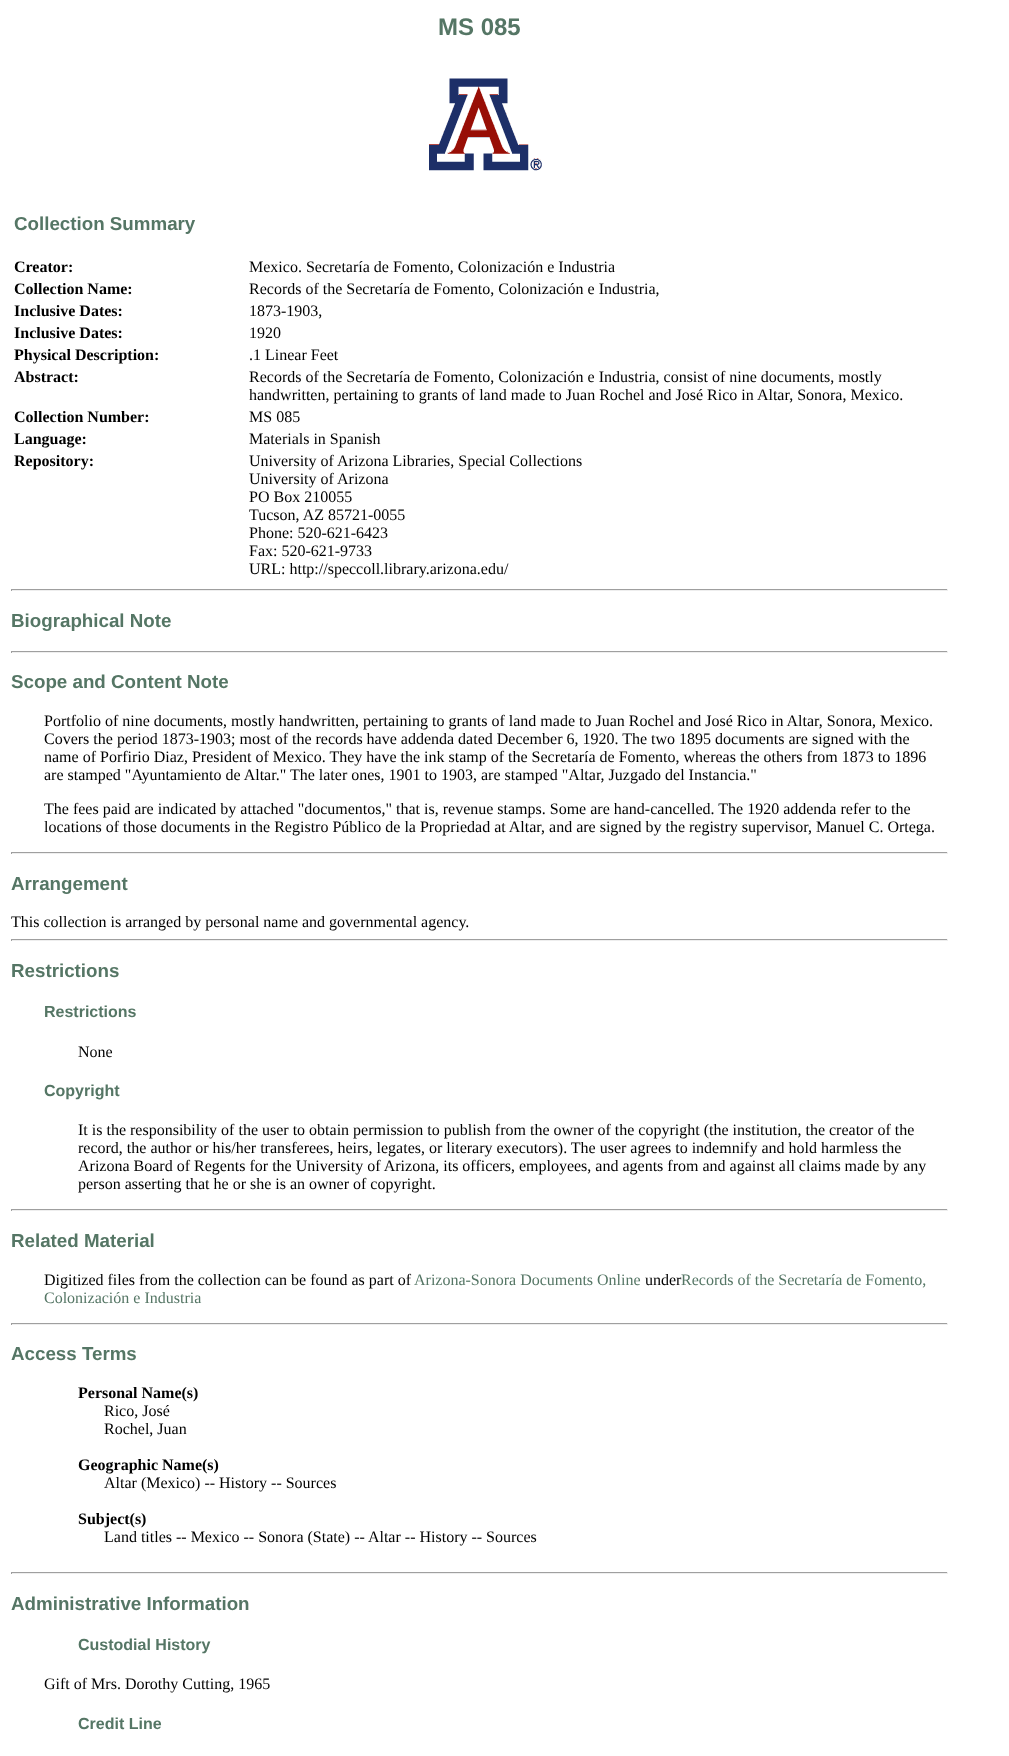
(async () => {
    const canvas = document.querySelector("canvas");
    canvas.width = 1009;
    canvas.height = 1756;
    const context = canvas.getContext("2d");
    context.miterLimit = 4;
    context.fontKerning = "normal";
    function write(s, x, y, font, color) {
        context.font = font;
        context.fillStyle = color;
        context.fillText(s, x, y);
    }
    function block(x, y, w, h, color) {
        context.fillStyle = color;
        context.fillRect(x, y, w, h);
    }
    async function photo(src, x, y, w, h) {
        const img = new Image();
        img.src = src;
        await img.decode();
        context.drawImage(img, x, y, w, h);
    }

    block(0, 0, 1009, 1756, "rgb(255, 255, 255)");
    write("MS 085", 438, 35, "bold 24px Liberation Sans", "rgb(85, 118, 101)");
    await photo("media/1.png", 429, 78, 113, 93);
    write("Collection Summary", 14, 230, "bold 18.75px Liberation Sans", "rgb(85, 118, 101)");
    write("Creator:", 14, 272, "bold 16px Liberation Serif", "rgb(0, 0, 0)");
    write("Mexico. Secretaría de Fomento, Colonización e Industria", 249, 272, "16px Liberation Serif", "rgb(0, 0, 0)");
    write("Collection Name:", 14, 294, "bold 16px Liberation Serif", "rgb(0, 0, 0)");
    write("Records of the Secretaría de Fomento, Colonización e Industria,", 249, 294, "16px Liberation Serif", "rgb(0, 0, 0)");
    write("Inclusive Dates:", 14, 316, "bold 16px Liberation Serif", "rgb(0, 0, 0)");
    write("1873-1903,", 249, 316, "16px Liberation Serif", "rgb(0, 0, 0)");
    write("Inclusive Dates:", 14, 338, "bold 16px Liberation Serif", "rgb(0, 0, 0)");
    write("1920", 249, 338, "16px Liberation Serif", "rgb(0, 0, 0)");
    write("Physical Description:", 14, 360, "bold 16px Liberation Serif", "rgb(0, 0, 0)");
    write(".1 Linear Feet", 249, 360, "16px Liberation Serif", "rgb(0, 0, 0)");
    write("Abstract:", 14, 382, "bold 16px Liberation Serif", "rgb(0, 0, 0)");
    write("Records of the Secretaría de Fomento, Colonización e Industria, consist of nine documents, mostly", 249, 382, "16px Liberation Serif", "rgb(0, 0, 0)");
    write("handwritten, pertaining to grants of land made to Juan Rochel and José Rico in Altar, Sonora, Mexico.", 249, 400, "16px Liberation Serif", "rgb(0, 0, 0)");
    write("Collection Number:", 14, 422, "bold 16px Liberation Serif", "rgb(0, 0, 0)");
    write("MS 085", 249, 422, "16px Liberation Serif", "rgb(0, 0, 0)");
    write("Language:", 14, 444, "bold 16px Liberation Serif", "rgb(0, 0, 0)");
    write("Materials in Spanish", 249, 444, "16px Liberation Serif", "rgb(0, 0, 0)");
    write("Repository:", 14, 466, "bold 16px Liberation Serif", "rgb(0, 0, 0)");
    write("University of Arizona Libraries, Special Collections", 249, 466, "16px Liberation Serif", "rgb(0, 0, 0)");
    write("University of Arizona", 249, 484, "16px Liberation Serif", "rgb(0, 0, 0)");
    write("PO Box 210055", 249, 502, "16px Liberation Serif", "rgb(0, 0, 0)");
    write("Tucson, AZ 85721-0055", 249, 520, "16px Liberation Serif", "rgb(0, 0, 0)");
    write("Phone: 520-621-6423", 249, 538, "16px Liberation Serif", "rgb(0, 0, 0)");
    write("Fax: 520-621-9733", 249, 556, "16px Liberation Serif", "rgb(0, 0, 0)");
    write("URL: http://speccoll.library.arizona.edu/", 249, 574, "16px Liberation Serif", "rgb(0, 0, 0)");
    block(11, 589, 937, 1, "rgb(159, 159, 159)");
    block(947, 589, 1, 2, "rgb(238, 238, 238)");
    block(11, 590, 937, 1, "rgb(238, 238, 238)");
    block(11, 589, 1, 2, "rgb(159, 159, 159)");
    write("Biographical Note", 11, 627, "bold 18.75px Liberation Sans", "rgb(85, 118, 101)");
    block(11, 651, 937, 1, "rgb(159, 159, 159)");
    block(947, 651, 1, 2, "rgb(238, 238, 238)");
    block(11, 652, 937, 1, "rgb(238, 238, 238)");
    block(11, 651, 1, 2, "rgb(159, 159, 159)");
    write("Scope and Content Note", 11, 688, "bold 18.75px Liberation Sans", "rgb(85, 118, 101)");
    write("Portfolio of nine documents, mostly handwritten, pertaining to grants of land made to Juan Rochel and José Rico in Altar, Sonora, Mexico.", 44, 726, "16px Liberation Serif", "rgb(0, 0, 0)");
    write("Covers the period 1873-1903; most of the records have addenda dated December 6, 1920. The two 1895 documents are signed with the", 44, 744, "16px Liberation Serif", "rgb(0, 0, 0)");
    write("name of Porfirio Diaz, President of Mexico. They have the ink stamp of the Secretaría de Fomento, whereas the others from 1873 to 1896", 44, 762, "16px Liberation Serif", "rgb(0, 0, 0)");
    write("are stamped \"Ayuntamiento de Altar.\" The later ones, 1901 to 1903, are stamped \"Altar, Juzgado del Instancia.\"", 44, 780, "16px Liberation Serif", "rgb(0, 0, 0)");
    write("The fees paid are indicated by attached \"documentos,\" that is, revenue stamps. Some are hand-cancelled. The 1920 addenda refer to the", 44, 814, "16px Liberation Serif", "rgb(0, 0, 0)");
    write("locations of those documents in the Registro Público de la Propriedad at Altar, and are signed by the registry supervisor, Manuel C. Ortega.", 44, 832, "16px Liberation Serif", "rgb(0, 0, 0)");
    block(11, 852, 937, 1, "rgb(159, 159, 159)");
    block(947, 852, 1, 2, "rgb(238, 238, 238)");
    block(11, 853, 937, 1, "rgb(238, 238, 238)");
    block(11, 852, 1, 2, "rgb(159, 159, 159)");
    write("Arrangement", 11, 890, "bold 18.75px Liberation Sans", "rgb(85, 118, 101)");
    write("This collection is arranged by personal name and governmental agency.", 11, 927, "16px Liberation Serif", "rgb(0, 0, 0)");
    block(11, 939, 937, 1, "rgb(159, 159, 159)");
    block(947, 939, 1, 2, "rgb(238, 238, 238)");
    block(11, 940, 937, 1, "rgb(238, 238, 238)");
    block(11, 939, 1, 2, "rgb(159, 159, 159)");
    write("Restrictions", 11, 977, "bold 18.75px Liberation Sans", "rgb(85, 118, 101)");
    write("Restrictions", 44, 1017, "bold 16px Liberation Sans", "rgb(85, 118, 101)");
    write("None", 78, 1057, "16px Liberation Serif", "rgb(0, 0, 0)");
    write("Copyright", 44, 1096, "bold 16px Liberation Sans", "rgb(85, 118, 101)");
    write("It is the responsibility of the user to obtain permission to publish from the owner of the copyright (the institution, the creator of the", 78, 1135, "16px Liberation Serif", "rgb(0, 0, 0)");
    write("record, the author or his/her transferees, heirs, legates, or literary executors). The user agrees to indemnify and hold harmless the", 78, 1153, "16px Liberation Serif", "rgb(0, 0, 0)");
    write("Arizona Board of Regents for the University of Arizona, its officers, employees, and agents from and against all claims made by any", 78, 1171, "16px Liberation Serif", "rgb(0, 0, 0)");
    write("person asserting that he or she is an owner of copyright.", 78, 1189, "16px Liberation Serif", "rgb(0, 0, 0)");
    block(11, 1209, 937, 1, "rgb(159, 159, 159)");
    block(947, 1209, 1, 2, "rgb(238, 238, 238)");
    block(11, 1210, 937, 1, "rgb(238, 238, 238)");
    block(11, 1209, 1, 2, "rgb(159, 159, 159)");
    write("Related Material", 11, 1247, "bold 18.75px Liberation Sans", "rgb(85, 118, 101)");
    write("Digitized files from the collection can be found as part of", 44, 1285, "16px Liberation Serif", "rgb(0, 0, 0)");
    write("Arizona-Sonora Documents Online", 414, 1285, "16px Liberation Serif", "rgb(85, 118, 101)");
    write("under", 645, 1285, "16px Liberation Serif", "rgb(0, 0, 0)");
    write("Records of the Secretaría de Fomento,", 681, 1285, "16px Liberation Serif", "rgb(85, 118, 101)");
    write("Colonización e Industria", 44, 1303, "16px Liberation Serif", "rgb(85, 118, 101)");
    block(11, 1323, 937, 1, "rgb(159, 159, 159)");
    block(947, 1323, 1, 2, "rgb(238, 238, 238)");
    block(11, 1324, 937, 1, "rgb(238, 238, 238)");
    block(11, 1323, 1, 2, "rgb(159, 159, 159)");
    write("Access Terms", 11, 1360, "bold 18.75px Liberation Sans", "rgb(85, 118, 101)");
    write("Personal Name(s)", 78, 1398, "bold 16px Liberation Serif", "rgb(0, 0, 0)");
    write("Rico, José", 104, 1416, "16px Liberation Serif", "rgb(0, 0, 0)");
    write("Rochel, Juan", 104, 1434, "16px Liberation Serif", "rgb(0, 0, 0)");
    write("Geographic Name(s)", 78, 1470, "bold 16px Liberation Serif", "rgb(0, 0, 0)");
    write("Altar (Mexico) -- History -- Sources", 104, 1488, "16px Liberation Serif", "rgb(0, 0, 0)");
    write("Subject(s)", 78, 1524, "bold 16px Liberation Serif", "rgb(0, 0, 0)");
    write("Land titles -- Mexico -- Sonora (State) -- Altar -- History -- Sources", 104, 1542, "16px Liberation Serif", "rgb(0, 0, 0)");
    block(11, 1572, 937, 1, "rgb(159, 159, 159)");
    block(947, 1572, 1, 2, "rgb(238, 238, 238)");
    block(11, 1573, 937, 1, "rgb(238, 238, 238)");
    block(11, 1572, 1, 2, "rgb(159, 159, 159)");
    write("Administrative Information", 11, 1610, "bold 18.75px Liberation Sans", "rgb(85, 118, 101)");
    write("Custodial History", 78, 1650, "bold 16px Liberation Sans", "rgb(85, 118, 101)");
    write("Gift of Mrs. Dorothy Cutting, 1965", 44, 1689, "16px Liberation Serif", "rgb(0, 0, 0)");
    write("Credit Line", 78, 1729, "bold 16px Liberation Sans", "rgb(85, 118, 101)");
})();
